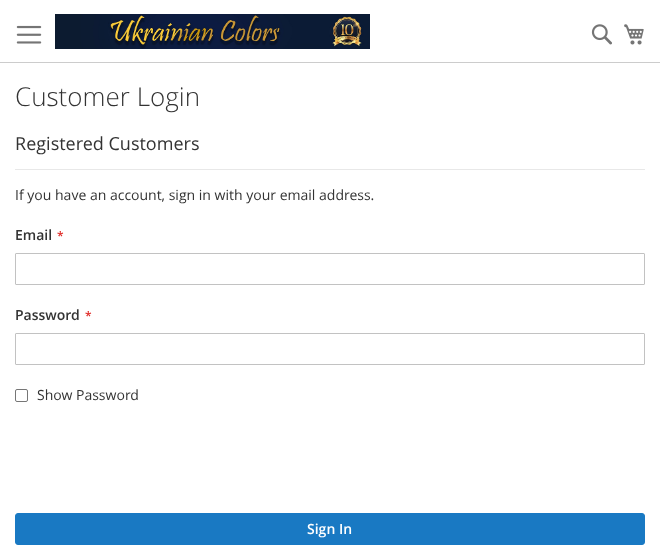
(async () => {
    const canvas = document.querySelector("canvas");
    canvas.width = 660;
    canvas.height = 547;
    const context = canvas.getContext("2d");
    context.miterLimit = 4;
    context.fontKerning = "normal";
    function write(s, x, y, font, color) {
        context.font = font;
        context.fillStyle = color;
        context.fillText(s, x, y);
    }
    function block(x, y, w, h, color) {
        context.fillStyle = color;
        context.fillRect(x, y, w, h);
    }
    async function photo(src, x, y, w, h) {
        const img = new Image();
        img.src = src;
        await img.decode();
        context.drawImage(img, x, y, w, h);
    }

    block(0, 0, 660, 547, "rgb(255, 255, 255)");
    block(0, 62, 660, 1, "rgb(204, 204, 204)");
    await photo("media/1.png", 16, 25, 26, 19);
    await photo("media/2.png", 55, 14, 315, 35);
    await photo("media/3.png", 591, 24, 21, 21);
    await photo("media/4.png", 624, 24, 20, 21);
    write("Customer Login", 15, 106, "300 26px Open Sans", "rgb(51, 51, 51)");
    block(15, 169, 630, 1, "rgb(232, 232, 232)");
    write("Registered Customers", 15, 150, "18px Open Sans", "rgb(51, 51, 51)");
    write("If you have an account, sign in with your email address.", 15, 200, "14px Open Sans", "rgb(51, 51, 51)");
    write("Email", 15, 240, "600 14px Open Sans", "rgb(51, 51, 51)");
    write("*", 57, 240, "600 12px Open Sans", "rgb(224, 43, 39)");
    context.beginPath();
    context.roundRect(15.5, 253.5, 629, 31, 0.5);
    context.strokeStyle = "rgb(194, 194, 194)";
    context.stroke();
    write("Password", 15, 320, "600 14px Open Sans", "rgb(51, 51, 51)");
    write("*", 85, 320, "600 12px Open Sans", "rgb(224, 43, 39)");
    context.beginPath();
    context.roundRect(15.5, 333.5, 629, 31, 0.5);
    context.stroke();
    context.beginPath();
    context.roundRect(15.5, 389.5, 12, 12, 1.5);
    context.strokeStyle = "rgb(118, 118, 118)";
    context.stroke();
    write("Show Password", 37, 400, "14px Open Sans", "rgb(51, 51, 51)");
    context.fillStyle = "rgb(25, 121, 195)";
    context.beginPath();
    context.roundRect(15.5, 513.5, 629, 31, 2.5);
    context.fill();
    context.strokeStyle = "rgb(25, 121, 195)";
    context.stroke();
    write("Sign In", 307, 534, "600 14px Open Sans", "rgb(255, 255, 255)");
})();
